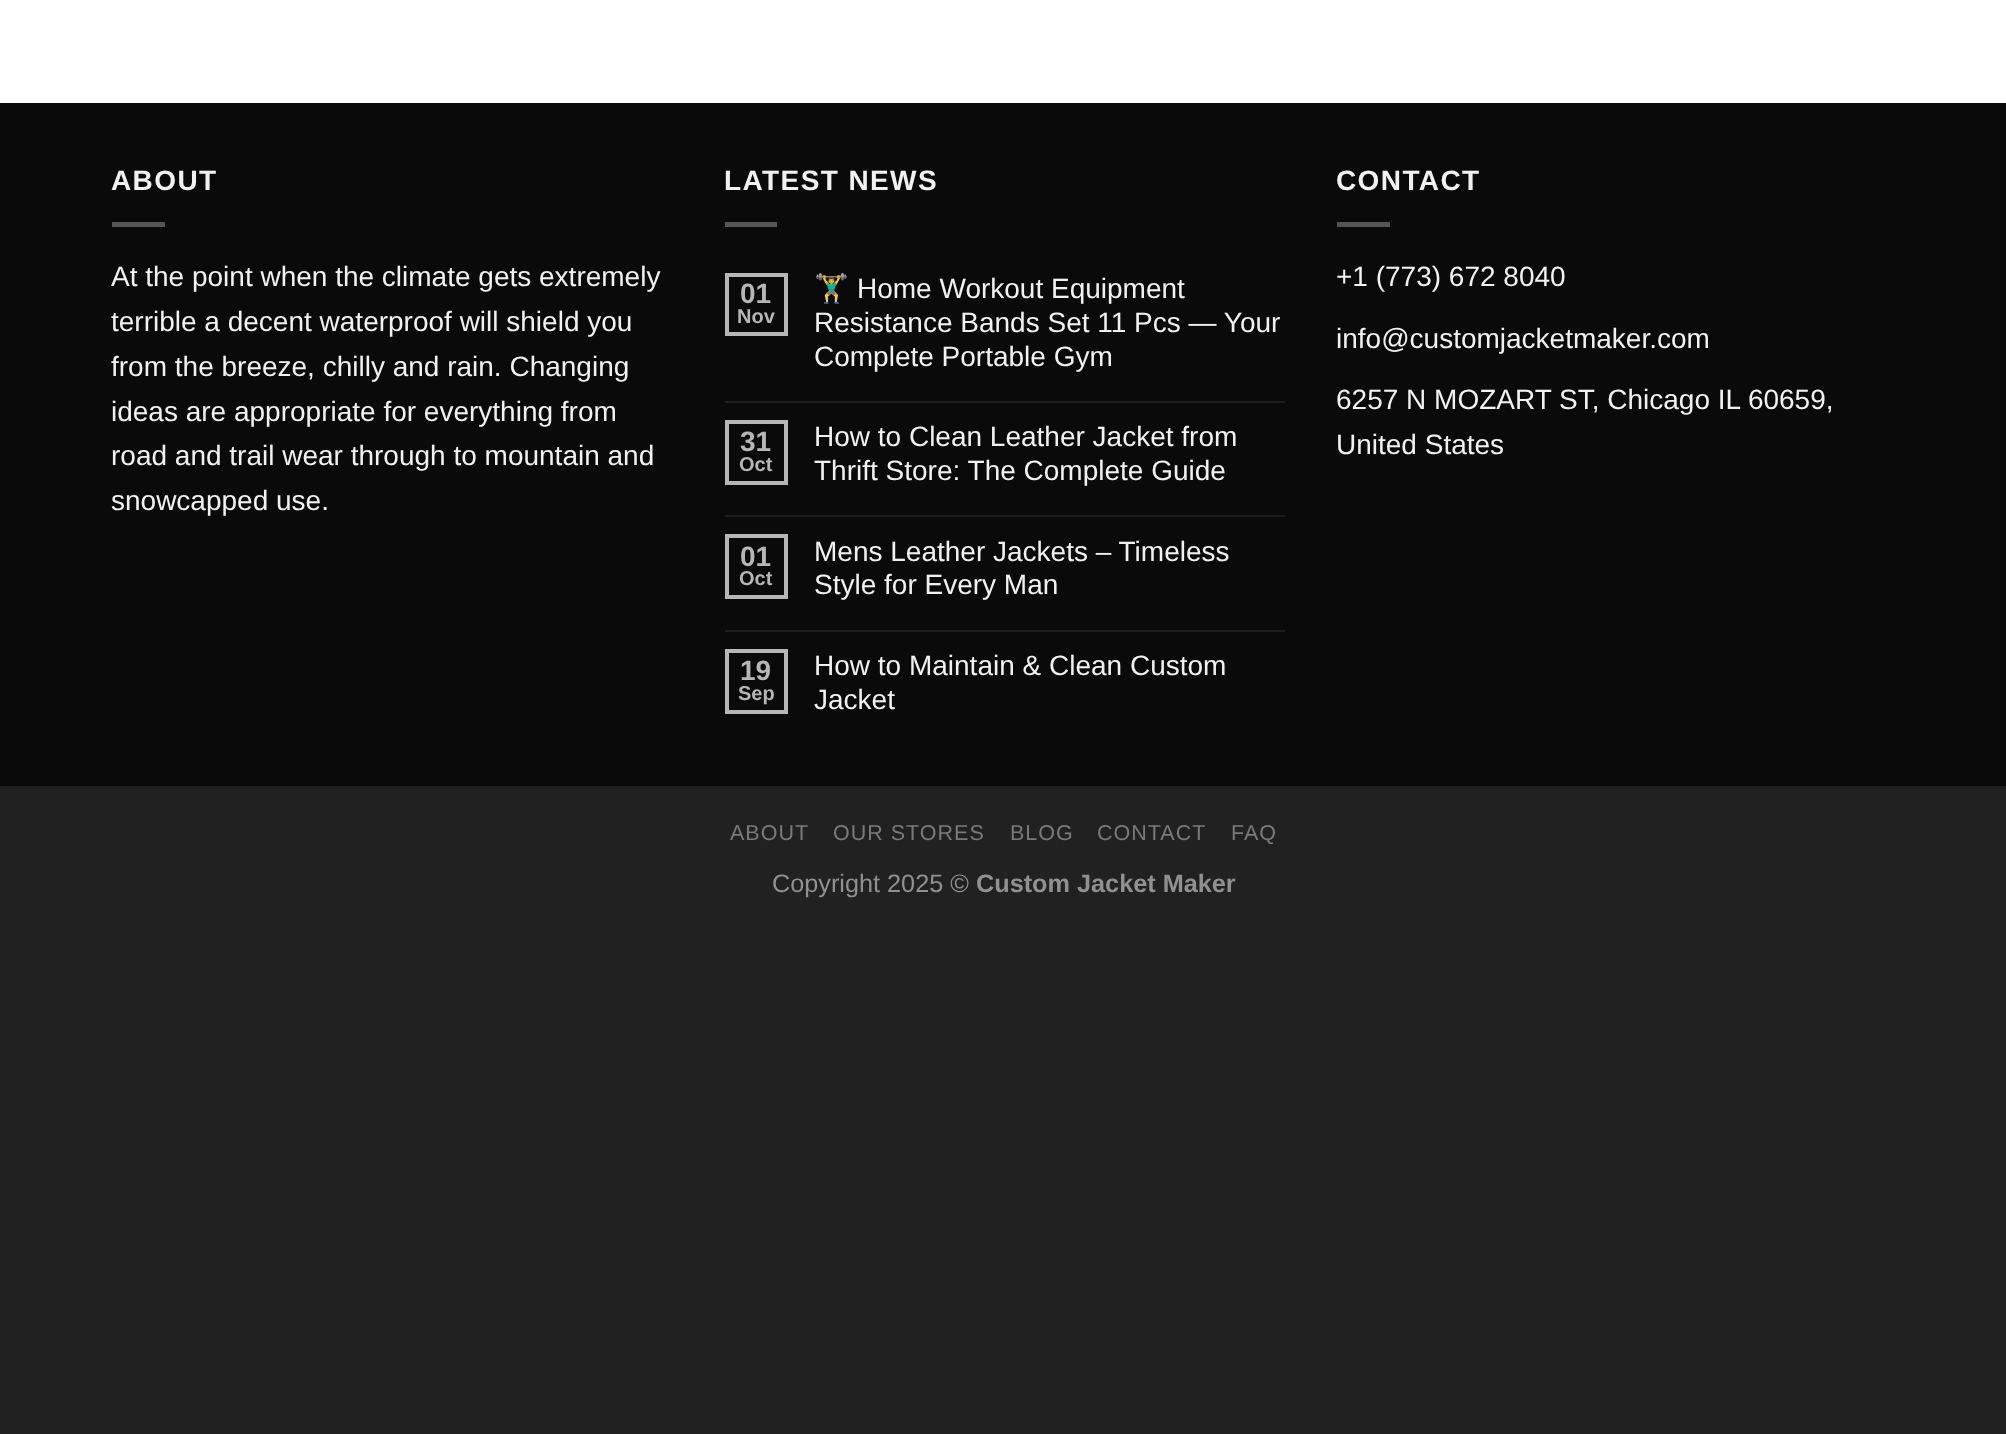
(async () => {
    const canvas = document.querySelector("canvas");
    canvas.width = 2006;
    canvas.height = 1434;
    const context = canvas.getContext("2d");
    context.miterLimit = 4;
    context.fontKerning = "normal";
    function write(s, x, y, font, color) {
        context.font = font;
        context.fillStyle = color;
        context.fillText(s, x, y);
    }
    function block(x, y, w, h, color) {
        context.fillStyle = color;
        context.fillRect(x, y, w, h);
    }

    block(0, 0, 2006, 1434, "rgb(33, 33, 33)");
    block(0, 0, 2006, 103, "rgb(255, 255, 255)");
    block(0, 103, 2006, 683, "rgb(10, 10, 10)");
    context.letterSpacing = "1.4px";
    write("ABOUT", 111, 190, "bold 28px Liberation Sans", "rgb(241, 241, 241)");
    block(112, 222, 53, 5, "rgb(84, 84, 84)");
    context.letterSpacing = "0px";
    write("At the point when the climate gets extremely", 111, 286, "28px Liberation Sans", "rgb(241, 241, 241)");
    write("terrible a decent waterproof will shield you", 111, 331, "28px Liberation Sans", "rgb(241, 241, 241)");
    write("from the breeze, chilly and rain. Changing", 111, 376, "28px Liberation Sans", "rgb(241, 241, 241)");
    write("ideas are appropriate for everything from", 111, 421, "28px Liberation Sans", "rgb(241, 241, 241)");
    write("road and trail wear through to mountain and", 111, 465, "28px Liberation Sans", "rgb(241, 241, 241)");
    write("snowcapped use.", 111, 510, "28px Liberation Sans", "rgb(241, 241, 241)");
    context.letterSpacing = "1.4px";
    write("LATEST NEWS", 724, 190, "bold 28px Liberation Sans", "rgb(241, 241, 241)");
    block(725, 222, 52, 5, "rgb(84, 84, 84)");
    context.strokeStyle = "rgb(182, 182, 182)";
    context.lineWidth = 4;
    context.strokeRect(727, 275, 59, 59);
    context.letterSpacing = "0px";
    write("01", 740, 303, "bold 28px Liberation Sans", "rgb(182, 182, 182)");
    write("Nov", 737, 323, "bold 20px Liberation Sans", "rgb(182, 182, 182)");
    write("🏋️‍♂️", 814, 298, "28px Noto Color Emoji", "rgb(241, 241, 241)");
    write("Home Workout Equipment", 857, 298, "28px Liberation Sans", "rgb(241, 241, 241)");
    write("Resistance Bands Set 11 Pcs — Your", 814, 332, "28px Liberation Sans", "rgb(241, 241, 241)");
    write("Complete Portable Gym", 814, 366, "28px Liberation Sans", "rgb(241, 241, 241)");
    block(725, 401, 560, 2, "rgb(30, 30, 30)");
    context.strokeRect(727, 422, 59, 61);
    write("31", 740, 451, "bold 28px Liberation Sans", "rgb(182, 182, 182)");
    write("Oct", 739, 471, "bold 20px Liberation Sans", "rgb(182, 182, 182)");
    write("How to Clean Leather Jacket from", 814, 446, "28px Liberation Sans", "rgb(241, 241, 241)");
    write("Thrift Store: The Complete Guide", 814, 480, "28px Liberation Sans", "rgb(241, 241, 241)");
    block(725, 515, 560, 2, "rgb(30, 30, 30)");
    context.strokeRect(727, 536, 59, 61);
    write("01", 740, 566, "bold 28px Liberation Sans", "rgb(182, 182, 182)");
    write("Oct", 739, 585, "bold 20px Liberation Sans", "rgb(182, 182, 182)");
    write("Mens Leather Jackets – Timeless", 814, 561, "28px Liberation Sans", "rgb(241, 241, 241)");
    write("Style for Every Man", 814, 594, "28px Liberation Sans", "rgb(241, 241, 241)");
    block(725, 630, 560, 2, "rgb(30, 30, 30)");
    context.strokeRect(727, 651, 59, 61);
    write("19", 740, 680, "bold 28px Liberation Sans", "rgb(182, 182, 182)");
    write("Sep", 738, 700, "bold 20px Liberation Sans", "rgb(182, 182, 182)");
    write("How to Maintain & Clean Custom", 814, 675, "28px Liberation Sans", "rgb(241, 241, 241)");
    write("Jacket", 814, 709, "28px Liberation Sans", "rgb(241, 241, 241)");
    context.letterSpacing = "1.4px";
    write("CONTACT", 1336, 190, "bold 28px Liberation Sans", "rgb(241, 241, 241)");
    block(1337, 222, 53, 5, "rgb(84, 84, 84)");
    context.letterSpacing = "0px";
    write("+1 (773) 672 8040", 1336, 286, "28px Liberation Sans", "rgb(241, 241, 241)");
    write("info@customjacketmaker.com", 1336, 348, "28px Liberation Sans", "rgb(241, 241, 241)");
    write("6257 N MOZART ST, Chicago IL 60659,", 1336, 409, "28px Liberation Sans", "rgb(241, 241, 241)");
    write("United States", 1336, 454, "28px Liberation Sans", "rgb(241, 241, 241)");
    context.letterSpacing = "1px";
    write("ABOUT", 730, 840, "21.5px Liberation Sans", "rgb(122, 122, 122)");
    write("OUR STORES", 833, 840, "21.5px Liberation Sans", "rgb(122, 122, 122)");
    write("BLOG", 1010, 840, "21.5px Liberation Sans", "rgb(122, 122, 122)");
    write("CONTACT", 1097, 840, "21.5px Liberation Sans", "rgb(122, 122, 122)");
    write("FAQ", 1231, 840, "21.5px Liberation Sans", "rgb(122, 122, 122)");
    context.letterSpacing = "0px";
    write("Copyright 2025 ©", 772, 892, "25.25px Liberation Sans", "rgb(144, 144, 144)");
    write("Custom Jacket Maker", 976, 892, "bold 25.25px Liberation Sans", "rgb(144, 144, 144)");
})();
